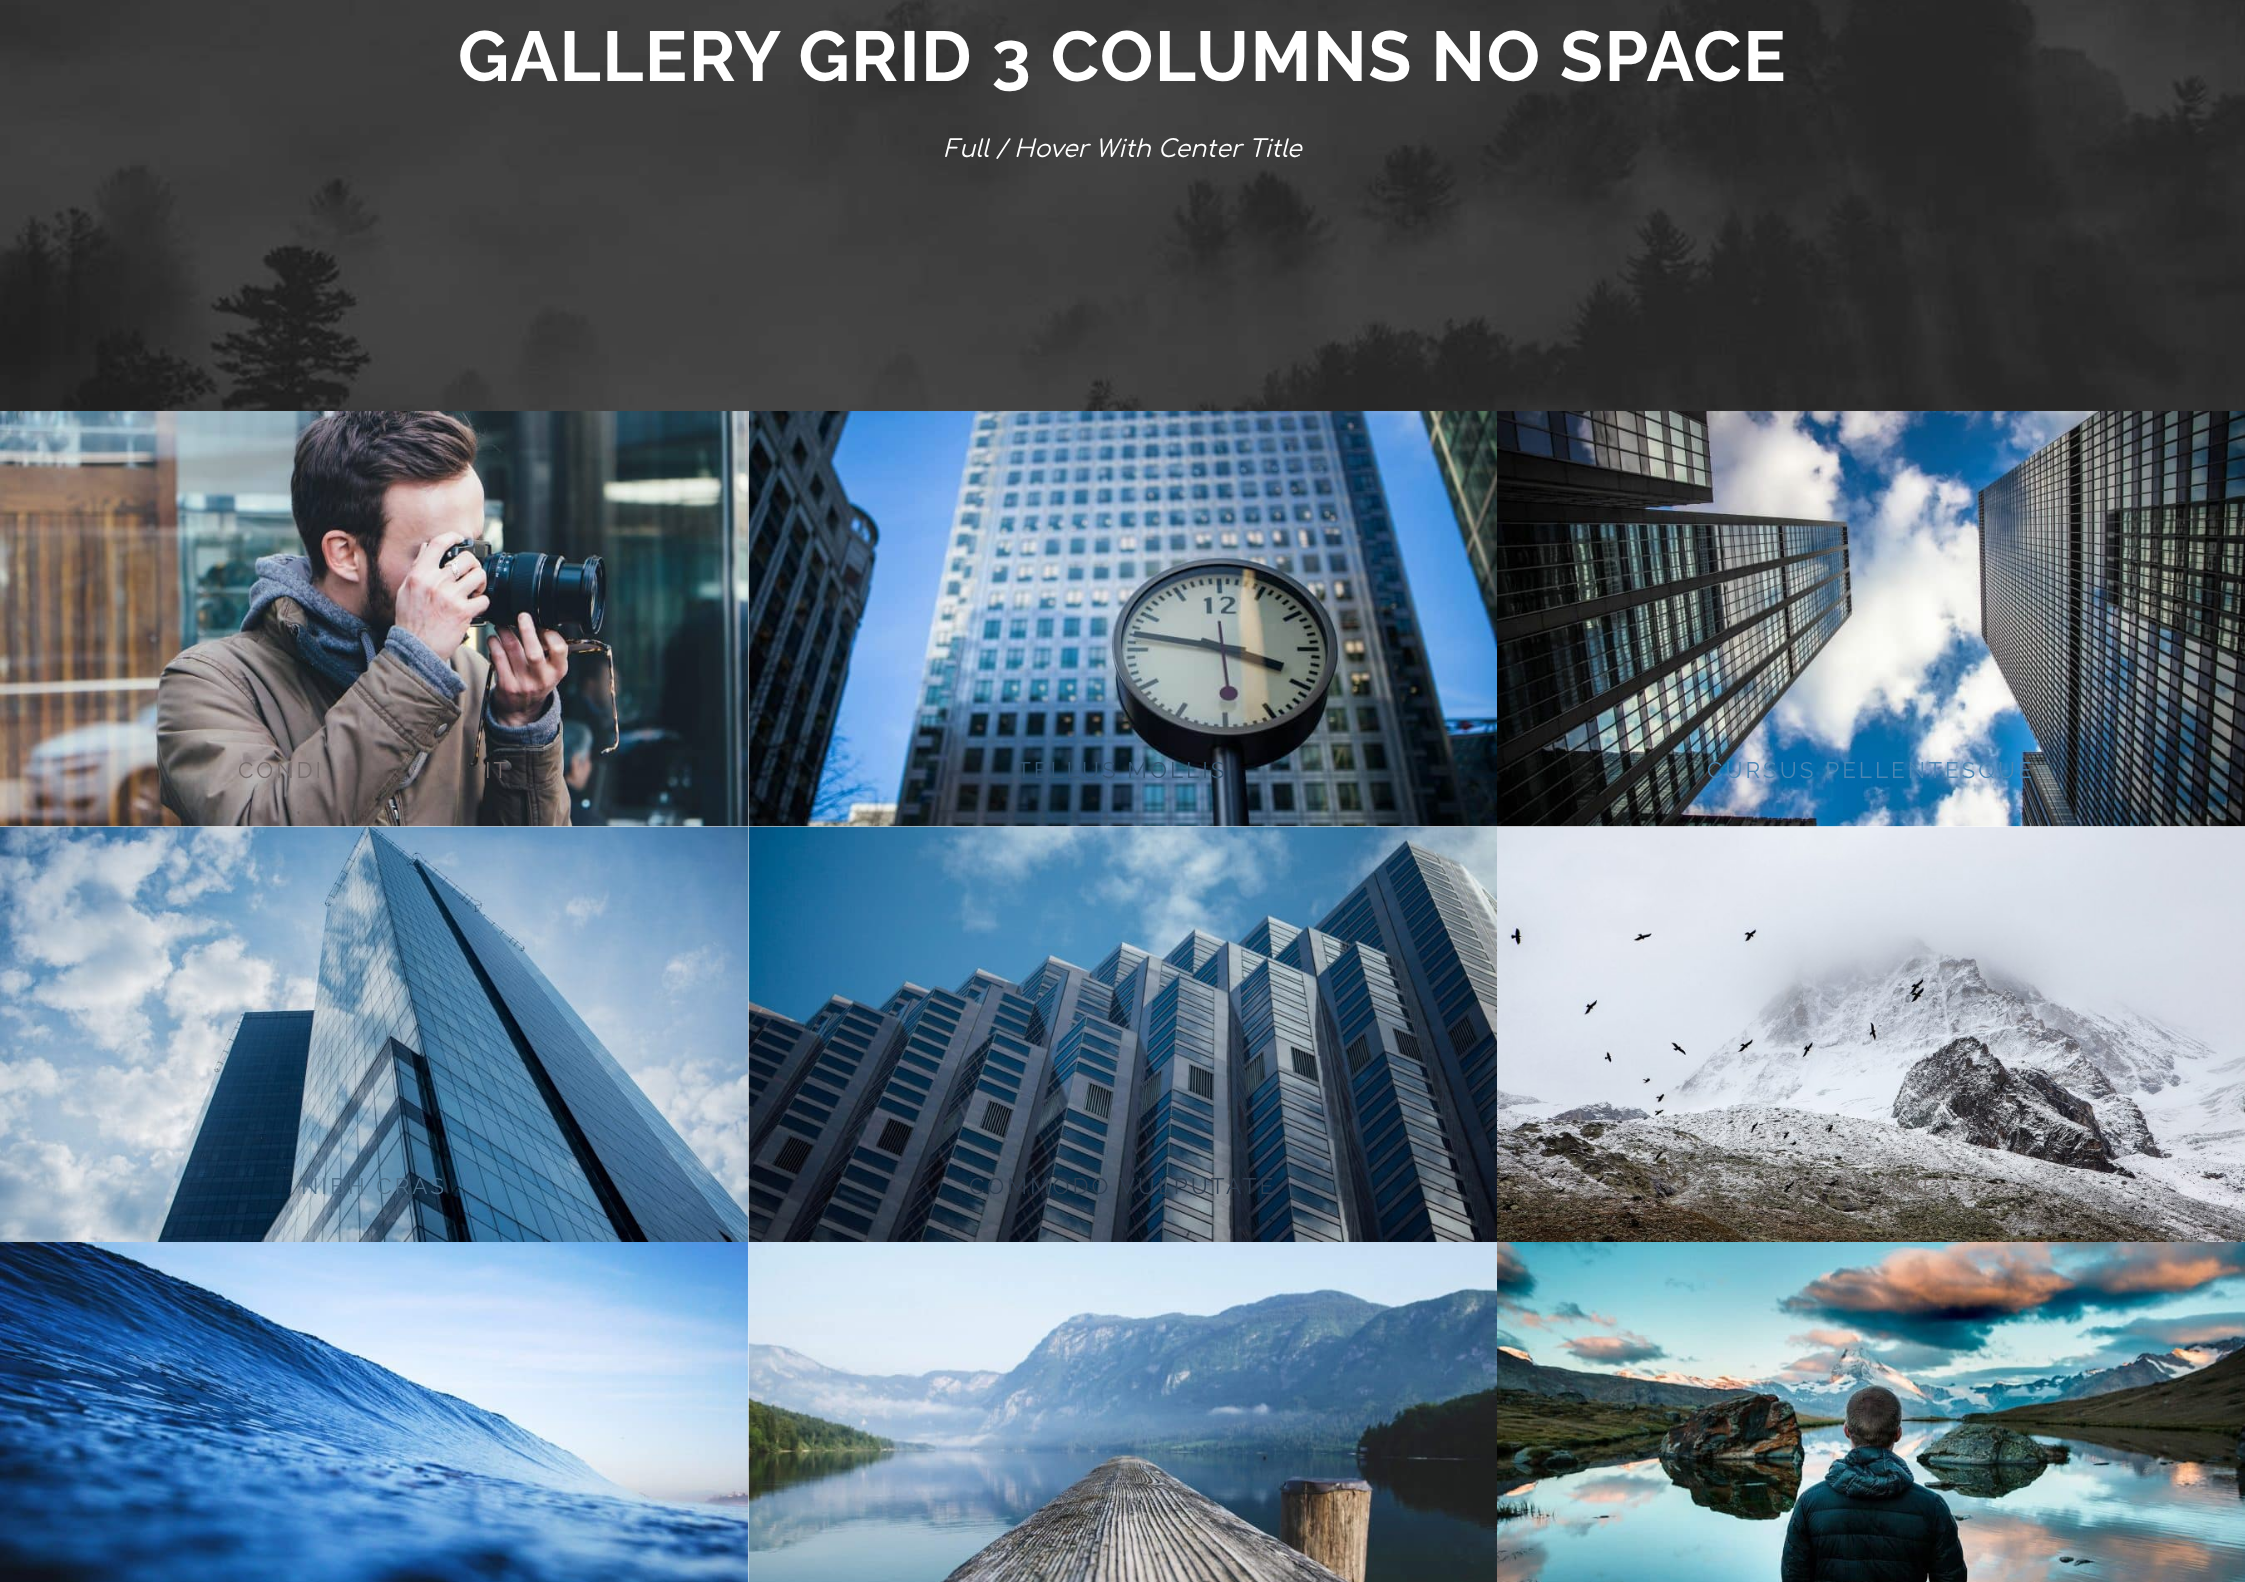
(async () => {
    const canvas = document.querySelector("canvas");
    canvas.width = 2245;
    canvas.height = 1582;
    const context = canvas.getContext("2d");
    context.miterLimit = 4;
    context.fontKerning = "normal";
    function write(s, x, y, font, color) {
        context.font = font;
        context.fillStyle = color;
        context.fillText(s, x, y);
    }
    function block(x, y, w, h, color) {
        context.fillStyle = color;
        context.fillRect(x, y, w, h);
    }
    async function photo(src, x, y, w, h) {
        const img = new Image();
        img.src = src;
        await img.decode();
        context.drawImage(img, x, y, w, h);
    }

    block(0, 0, 2245, 1582, "rgb(255, 255, 255)");
    await photo("media/1.png", 0, 0, 2245, 411);
    context.letterSpacing = "1.5px";
    write("GALLERY GRID 3 COLUMNS NO SPACE", 458, 81, "bold 70.5px Raleway", "rgb(255, 255, 255)");
    context.letterSpacing = "0px";
    write("Full / Hover With Center Title", 944, 157, "italic 24px Comfortaa", "rgb(255, 255, 255)");
    await photo("media/2.png", 0, 411, 749, 416);
    context.letterSpacing = "3px";
    write("CONDI", 238, 778, "22.5px Raleway", "rgb(118, 109, 109)");
    write("IT", 485, 778, "22.5px Raleway", "rgb(118, 109, 109)");
    await photo("media/3.png", 748, 411, 749, 416);
    write("TELLUS MOLLIS", 1017, 778, "22.5px Raleway", "rgb(52, 84, 112)");
    await photo("media/4.png", 1497, 411, 748, 416);
    write("CURSUS PELLENTESQUE", 1707, 778, "22.5px Raleway", "rgb(75, 135, 180)");
    await photo("media/5.png", 0, 826, 749, 416);
    write("NIBH CRAS", 301, 1194, "22.5px Raleway", "rgb(79, 111, 136)");
    await photo("media/6.png", 748, 826, 749, 416);
    write("COMMODO VULPUTATE", 969, 1194, "22.5px Raleway", "rgb(46, 62, 80)");
    await photo("media/7.png", 1497, 826, 748, 416);
    write("JUSTO AMET", 1787, 1194, "22.5px Raleway", "rgb(118, 109, 109)");
    await photo("media/8.png", 0, 1242, 749, 340);
    await photo("media/9.png", 748, 1242, 749, 340);
    await photo("media/10.png", 1497, 1242, 748, 340);
})();
